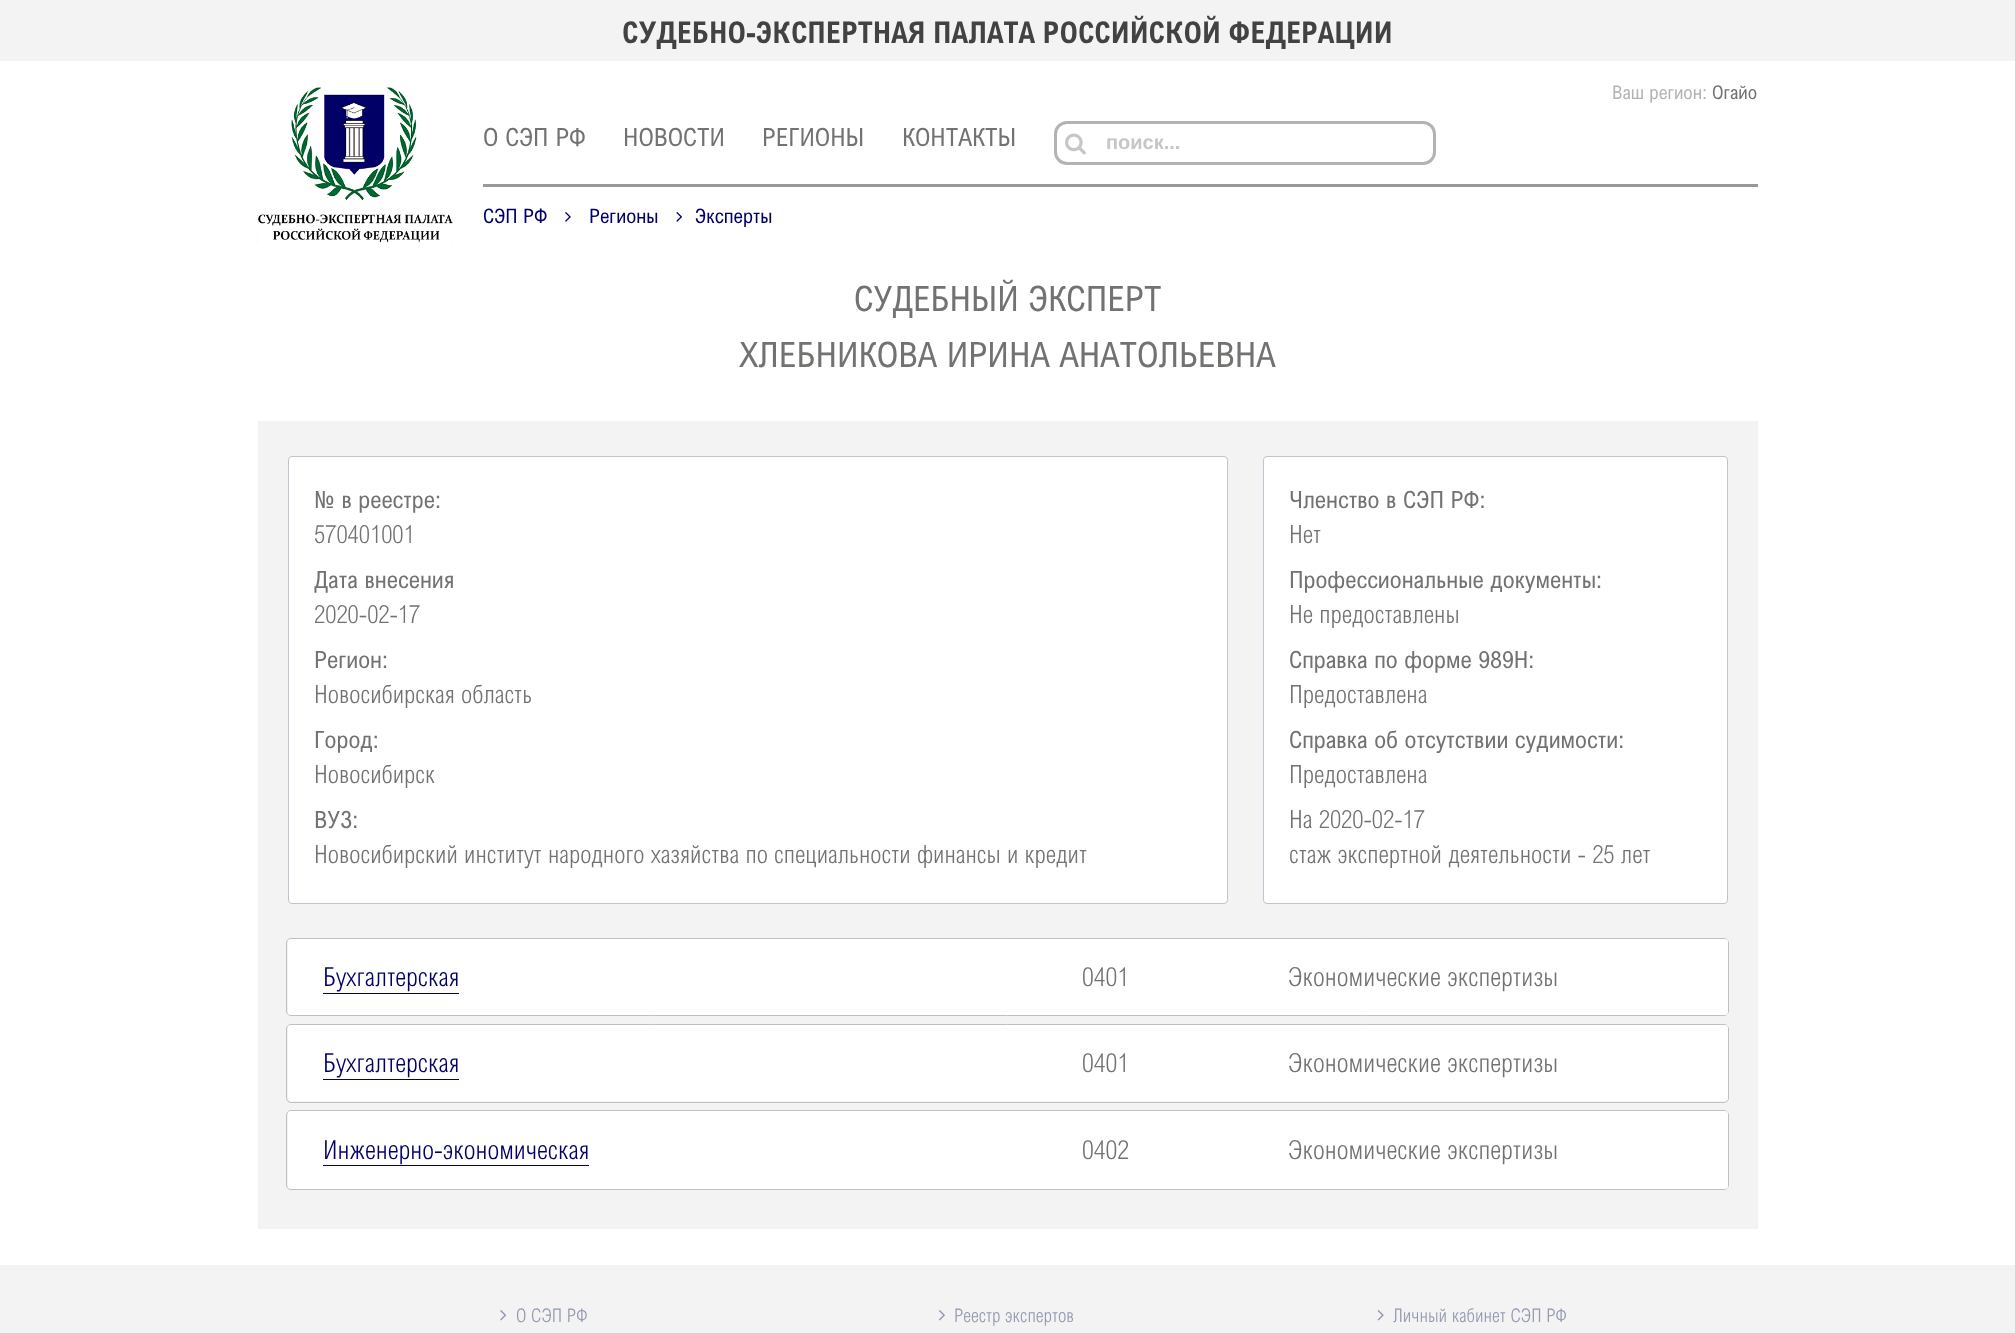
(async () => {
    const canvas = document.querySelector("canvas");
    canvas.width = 2015;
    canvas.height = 1333;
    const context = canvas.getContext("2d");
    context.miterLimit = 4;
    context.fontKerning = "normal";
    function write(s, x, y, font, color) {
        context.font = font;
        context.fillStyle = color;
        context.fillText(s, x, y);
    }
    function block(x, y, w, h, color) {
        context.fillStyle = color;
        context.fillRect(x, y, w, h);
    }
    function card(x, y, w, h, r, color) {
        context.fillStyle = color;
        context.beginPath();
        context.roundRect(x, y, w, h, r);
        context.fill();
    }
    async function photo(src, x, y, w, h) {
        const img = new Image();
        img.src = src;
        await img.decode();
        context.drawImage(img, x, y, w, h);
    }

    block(0, 0, 2015, 1333, "rgb(255, 255, 255)");
    block(0, 0, 2015, 61, "rgb(243, 243, 243)");
    write("СУДЕБНО-ЭКСПЕРТНАЯ ПАЛАТА РОССИЙСКОЙ ФЕДЕРАЦИИ", 622, 43, "bold 30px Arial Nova", "rgb(67, 66, 66)");
    await photo("media/1.png", 257, 87, 196, 161);
    block(483, 184, 1275, 3, "rgb(153, 153, 156)");
    write("Ваш регион:", 1612, 99, "18.75px Arial Nova", "rgb(178, 179, 179)");
    write("Огайо", 1712, 99, "18.75px Arial Nova", "rgb(114, 114, 113)");
    write("О СЭП РФ", 483, 146, "25px Arial Nova", "rgb(114, 114, 113)");
    write("НОВОСТИ", 623, 146, "25px Arial Nova", "rgb(114, 114, 113)");
    write("РЕГИОНЫ", 762, 146, "25px Arial Nova", "rgb(114, 114, 113)");
    write("КОНТАКТЫ", 902, 146, "25px Arial Nova", "rgb(114, 114, 113)");
    context.beginPath();
    context.roundRect(1055.5, 122.5, 379, 41, 11.5);
    context.strokeStyle = "rgb(178, 179, 179)";
    context.lineWidth = 3;
    context.stroke();
    await photo("media/2.png", 1065, 133, 21, 22);
    write("поиск...", 1106, 149, "bold 20px Liberation Sans", "rgb(197, 198, 198)");
    write("СЭП РФ", 483, 223, "20px Arial Nova", "rgb(0, 0, 102)");
    await photo("media/3.png", 565, 212, 6, 10);
    write("Регионы", 589, 223, "20px Arial Nova", "rgb(0, 0, 102)");
    await photo("media/4.png", 676, 212, 6, 10);
    write("Эксперты", 695, 223, "20px Arial Nova", "rgb(0, 0, 102)");
    write("СУДЕБНЫЙ ЭКСПЕРТ", 854, 311, "35px Arial Nova", "rgb(114, 114, 113)");
    write("ХЛЕБНИКОВА ИРИНА АНАТОЛЬЕВНА", 739, 367, "35px Arial Nova", "rgb(114, 114, 113)");
    block(258, 421, 1500, 808, "rgb(243, 243, 243)");
    context.fillStyle = "rgb(255, 255, 255)";
    context.beginPath();
    context.roundRect(288.5, 456.5, 939, 447, 3.5);
    context.fill();
    context.strokeStyle = "rgb(194, 195, 206)";
    context.lineWidth = 1;
    context.stroke();
    write("№ в реестре:", 314, 508, "23.75px Arial Nova", "rgb(114, 114, 113)");
    write("570401001", 314, 543, "300 25px Arial Nova", "rgb(114, 114, 113)");
    write("Дата внесения", 314, 588, "23.75px Arial Nova", "rgb(114, 114, 113)");
    write("2020-02-17", 314, 623, "300 25px Arial Nova", "rgb(114, 114, 113)");
    write("Регион:", 314, 668, "23.75px Arial Nova", "rgb(114, 114, 113)");
    write("Новосибирская область", 314, 703, "300 25px Arial Nova", "rgb(114, 114, 113)");
    write("Город:", 314, 748, "23.75px Arial Nova", "rgb(114, 114, 113)");
    write("Новосибирск", 314, 783, "300 25px Arial Nova", "rgb(114, 114, 113)");
    write("ВУЗ:", 314, 828, "23.75px Arial Nova", "rgb(114, 114, 113)");
    write("Новосибирский институт народного хазяйства по специальности финансы и кредит", 314, 863, "300 25px Arial Nova", "rgb(114, 114, 113)");
    context.fillStyle = "rgb(255, 255, 255)";
    context.beginPath();
    context.roundRect(1263.5, 456.5, 464, 447, 3.5);
    context.fill();
    context.stroke();
    write("Членство в СЭП РФ:", 1289, 508, "23.75px Arial Nova", "rgb(114, 114, 113)");
    write("Нет", 1289, 543, "300 25px Arial Nova", "rgb(114, 114, 113)");
    write("Профессиональные документы:", 1289, 588, "23.75px Arial Nova", "rgb(114, 114, 113)");
    write("Не предоставлены", 1289, 623, "300 25px Arial Nova", "rgb(114, 114, 113)");
    write("Справка по форме 989Н:", 1289, 668, "23.75px Arial Nova", "rgb(114, 114, 113)");
    write("Предоставлена", 1289, 703, "300 25px Arial Nova", "rgb(114, 114, 113)");
    write("Справка об отсутствии судимости:", 1289, 748, "23.75px Arial Nova", "rgb(114, 114, 113)");
    write("Предоставлена", 1289, 783, "300 25px Arial Nova", "rgb(114, 114, 113)");
    write("На 2020-02-17", 1289, 828, "300 25px Arial Nova", "rgb(114, 114, 113)");
    write("стаж экспертной деятельности - 25 лет", 1289, 863, "300 25px Arial Nova", "rgb(114, 114, 113)");
    context.beginPath();
    context.roundRect(286.5, 938.5, 1442, 77, 4.5);
    context.strokeStyle = "rgb(191, 192, 197)";
    context.stroke();
    card(288, 939, 1440, 76, 3, "rgb(255, 255, 255)");
    write("Бухгалтерская", 323, 986, "300 26.25px Arial Nova", "rgb(0, 0, 102)");
    block(323, 993, 136, 1, "rgb(0, 0, 102)");
    write("0401", 1082, 986, "300 26.25px Arial Nova", "rgb(114, 114, 113)");
    write("Экономические экспертизы", 1288, 986, "300 26.25px Arial Nova", "rgb(114, 114, 113)");
    context.beginPath();
    context.roundRect(286.5, 1024.5, 1442, 78, 4.5);
    context.stroke();
    card(288, 1025, 1440, 76, 3, "rgb(255, 255, 255)");
    write("Бухгалтерская", 323, 1072, "300 26.25px Arial Nova", "rgb(0, 0, 102)");
    block(323, 1079, 136, 1, "rgb(0, 0, 102)");
    write("0401", 1082, 1072, "300 26.25px Arial Nova", "rgb(114, 114, 113)");
    write("Экономические экспертизы", 1288, 1072, "300 26.25px Arial Nova", "rgb(114, 114, 113)");
    context.beginPath();
    context.roundRect(286.5, 1110.5, 1442, 79, 4.5);
    context.stroke();
    card(288, 1111, 1440, 78, 3, "rgb(255, 255, 255)");
    write("Инженерно-экономическая", 323, 1159, "300 26.25px Arial Nova", "rgb(0, 0, 102)");
    block(323, 1165, 266, 1, "rgb(0, 0, 102)");
    write("0402", 1082, 1159, "300 26.25px Arial Nova", "rgb(114, 114, 113)");
    write("Экономические экспертизы", 1288, 1159, "300 26.25px Arial Nova", "rgb(114, 114, 113)");
    block(0, 1265, 2015, 68, "rgb(243, 243, 243)");
    await photo("media/5.png", 500, 1310, 7, 11);
    write("О СЭП РФ", 516, 1322, "300 18.75px Arial Nova", "rgb(147, 152, 175)");
    await photo("media/6.png", 939, 1310, 6, 11);
    write("Реестр экспертов", 954, 1322, "300 18.75px Arial Nova", "rgb(147, 152, 175)");
    await photo("media/7.png", 1377, 1310, 7, 11);
    write("Личный кабинет СЭП РФ", 1393, 1322, "300 18.75px Arial Nova", "rgb(147, 152, 175)");
})();
